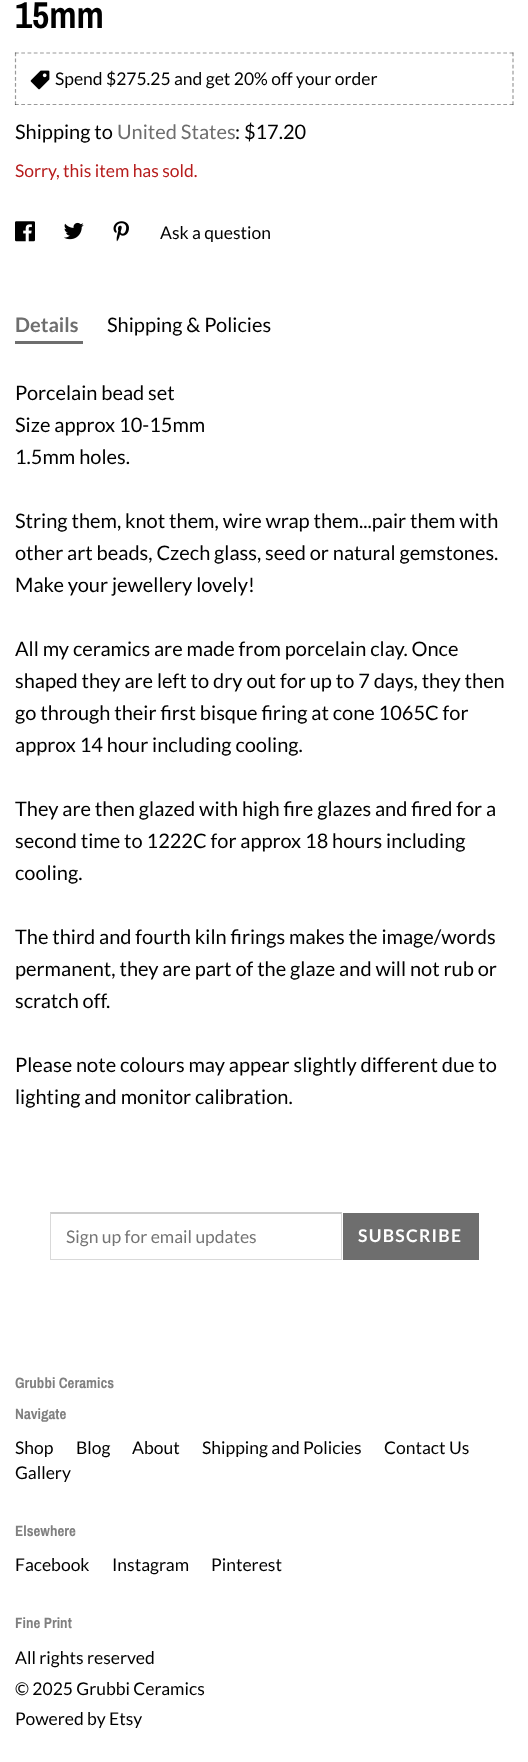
(async () => {
    const canvas = document.querySelector("canvas");
    canvas.width = 528;
    canvas.height = 1762;
    const context = canvas.getContext("2d");
    context.miterLimit = 4;
    context.fontKerning = "normal";
    function write(s, x, y, font, color) {
        context.font = font;
        context.fillStyle = color;
        context.fillText(s, x, y);
    }
    function block(x, y, w, h, color) {
        context.fillStyle = color;
        context.fillRect(x, y, w, h);
    }
    async function photo(src, x, y, w, h) {
        const img = new Image();
        img.src = src;
        await img.decode();
        context.drawImage(img, x, y, w, h);
    }

    block(0, 0, 528, 1762, "rgb(255, 255, 255)");
    write("15mm", 15, 28, "bold 37.5px Archivo Narrow", "rgb(0, 0, 0)");
    context.beginPath();
    context.moveTo(15, 53);
    context.lineTo(514, 53);
    context.strokeStyle = "rgb(153, 153, 153)";
    context.lineWidth = 1.2;
    context.setLineDash([3.75, 2.51]);
    context.stroke();
    context.beginPath();
    context.moveTo(513, 52.5);
    context.lineTo(513, 105);
    context.strokeStyle = "rgba(0, 0, 0, 0.4)";
    context.setLineDash([3.75, 2.35]);
    context.stroke();
    context.beginPath();
    context.moveTo(15, 104.5);
    context.lineTo(514, 104.5);
    context.setLineDash([3.75, 2.51]);
    context.stroke();
    context.beginPath();
    context.moveTo(15.5, 52.5);
    context.lineTo(15.5, 105);
    context.setLineDash([3.75, 2.35]);
    context.stroke();
    await photo("media/1.png", 30, 70, 20, 20);
    write("Spend $275.25 and get 20% off your order", 55, 85, "17.5px Lato", "rgb(0, 0, 0)");
    write("Shipping to", 15, 139, "20px Lato", "rgb(0, 0, 0)");
    write("United States", 117, 139, "20px Lato", "rgb(110, 110, 110)");
    write(": $17.20", 235, 139, "20px Lato", "rgb(0, 0, 0)");
    write("Sorry, this item has sold.", 15, 177, "17.5px Lato", "rgb(183, 28, 28)");
    await photo("media/2.png", 15, 221, 20, 21);
    await photo("media/3.png", 64, 222, 20, 18);
    await photo("media/4.png", 113, 221, 16, 21);
    write("Ask a question", 160, 239, "17.5px Lato", "rgb(0, 0, 0)");
    write("Details", 15, 332, "bold 20px Lato", "rgb(110, 110, 110)");
    block(15, 341, 68, 3, "rgb(110, 110, 110)");
    write("Shipping & Policies", 107, 332, "20px Lato", "rgb(0, 0, 0)");
    write("Porcelain bead set", 15, 400, "20px Lato", "rgb(0, 0, 0)");
    write("Size approx 10-15mm", 15, 432, "20px Lato", "rgb(0, 0, 0)");
    write("1.5mm holes.", 15, 464, "20px Lato", "rgb(0, 0, 0)");
    write("String them, knot them, wire wrap them...pair them with", 15, 528, "20px Lato", "rgb(0, 0, 0)");
    write("other art beads, Czech glass, seed or natural gemstones.", 15, 560, "20px Lato", "rgb(0, 0, 0)");
    write("Make your jewellery lovely!", 15, 592, "20px Lato", "rgb(0, 0, 0)");
    write("All my ceramics are made from porcelain clay. Once", 15, 656, "20px Lato", "rgb(0, 0, 0)");
    write("shaped they are left to dry out for up to 7 days, they then", 15, 688, "20px Lato", "rgb(0, 0, 0)");
    write("go through their first bisque firing at cone 1065C for", 15, 720, "20px Lato", "rgb(0, 0, 0)");
    write("approx 14 hour including cooling.", 15, 752, "20px Lato", "rgb(0, 0, 0)");
    write("They are then glazed with high fire glazes and fired for a", 15, 816, "20px Lato", "rgb(0, 0, 0)");
    write("second time to 1222C for approx 18 hours including", 15, 848, "20px Lato", "rgb(0, 0, 0)");
    write("cooling.", 15, 880, "20px Lato", "rgb(0, 0, 0)");
    write("The third and fourth kiln firings makes the image/words", 15, 944, "20px Lato", "rgb(0, 0, 0)");
    write("permanent, they are part of the glaze and will not rub or", 15, 976, "20px Lato", "rgb(0, 0, 0)");
    write("scratch off.", 15, 1008, "20px Lato", "rgb(0, 0, 0)");
    write("Please note colours may appear slightly different due to", 15, 1072, "20px Lato", "rgb(0, 0, 0)");
    write("lighting and monitor calibration.", 15, 1104, "20px Lato", "rgb(0, 0, 0)");
    context.fillStyle = "rgb(204, 204, 204)";
    context.beginPath();
    context.moveTo(50, 1212);
    context.lineTo(342, 1212);
    context.lineTo(341, 1214);
    context.lineTo(51, 1214);
    context.closePath();
    context.fill();
    context.fillStyle = "rgba(0, 0, 0, 0.15)";
    context.beginPath();
    context.moveTo(342, 1212);
    context.lineTo(342, 1260);
    context.lineTo(341, 1259);
    context.lineTo(341, 1214);
    context.closePath();
    context.fill();
    context.beginPath();
    context.moveTo(342, 1260);
    context.lineTo(50, 1260);
    context.lineTo(51, 1259);
    context.lineTo(341, 1259);
    context.closePath();
    context.fill();
    context.beginPath();
    context.moveTo(50, 1260);
    context.lineTo(50, 1212);
    context.lineTo(51, 1214);
    context.lineTo(51, 1259);
    context.closePath();
    context.fill();
    write("Sign up for email updates", 66, 1243, "17.5px Lato", "rgb(117, 117, 117)");
    block(343, 1213, 136, 47, "rgb(110, 110, 110)");
    context.letterSpacing = "1.25px";
    write("SUBSCRIBE", 358, 1242, "bold 17.5px Lato", "rgb(255, 255, 255)");
    context.letterSpacing = "0px";
    write("Grubbi Ceramics", 15, 1388, "bold 15px Archivo Narrow", "rgb(128, 128, 128)");
    write("Navigate", 15, 1419, "bold 15px Archivo Narrow", "rgb(128, 128, 128)");
    write("Shop", 15, 1454, "17.5px Lato", "rgb(0, 0, 0)");
    write("Blog", 76, 1454, "17.5px Lato", "rgb(0, 0, 0)");
    write("About", 132, 1454, "17.5px Lato", "rgb(0, 0, 0)");
    write("Shipping and Policies", 202, 1454, "17.5px Lato", "rgb(0, 0, 0)");
    write("Contact Us", 384, 1454, "17.5px Lato", "rgb(0, 0, 0)");
    write("Gallery", 15, 1479, "17.5px Lato", "rgb(0, 0, 0)");
    write("Elsewhere", 15, 1536, "bold 15px Archivo Narrow", "rgb(128, 128, 128)");
    write("Facebook", 15, 1571, "17.5px Lato", "rgb(0, 0, 0)");
    write("Instagram", 112, 1571, "17.5px Lato", "rgb(0, 0, 0)");
    write("Pinterest", 211, 1571, "17.5px Lato", "rgb(0, 0, 0)");
    write("Fine Print", 15, 1628, "bold 15px Archivo Narrow", "rgb(128, 128, 128)");
    write("All rights reserved", 15, 1664, "17.5px Lato", "rgb(0, 0, 0)");
    write("© 2025 Grubbi Ceramics", 15, 1695, "17.5px Lato", "rgb(0, 0, 0)");
    write("Powered by Etsy", 15, 1725, "17.5px Lato", "rgb(0, 0, 0)");
})();
